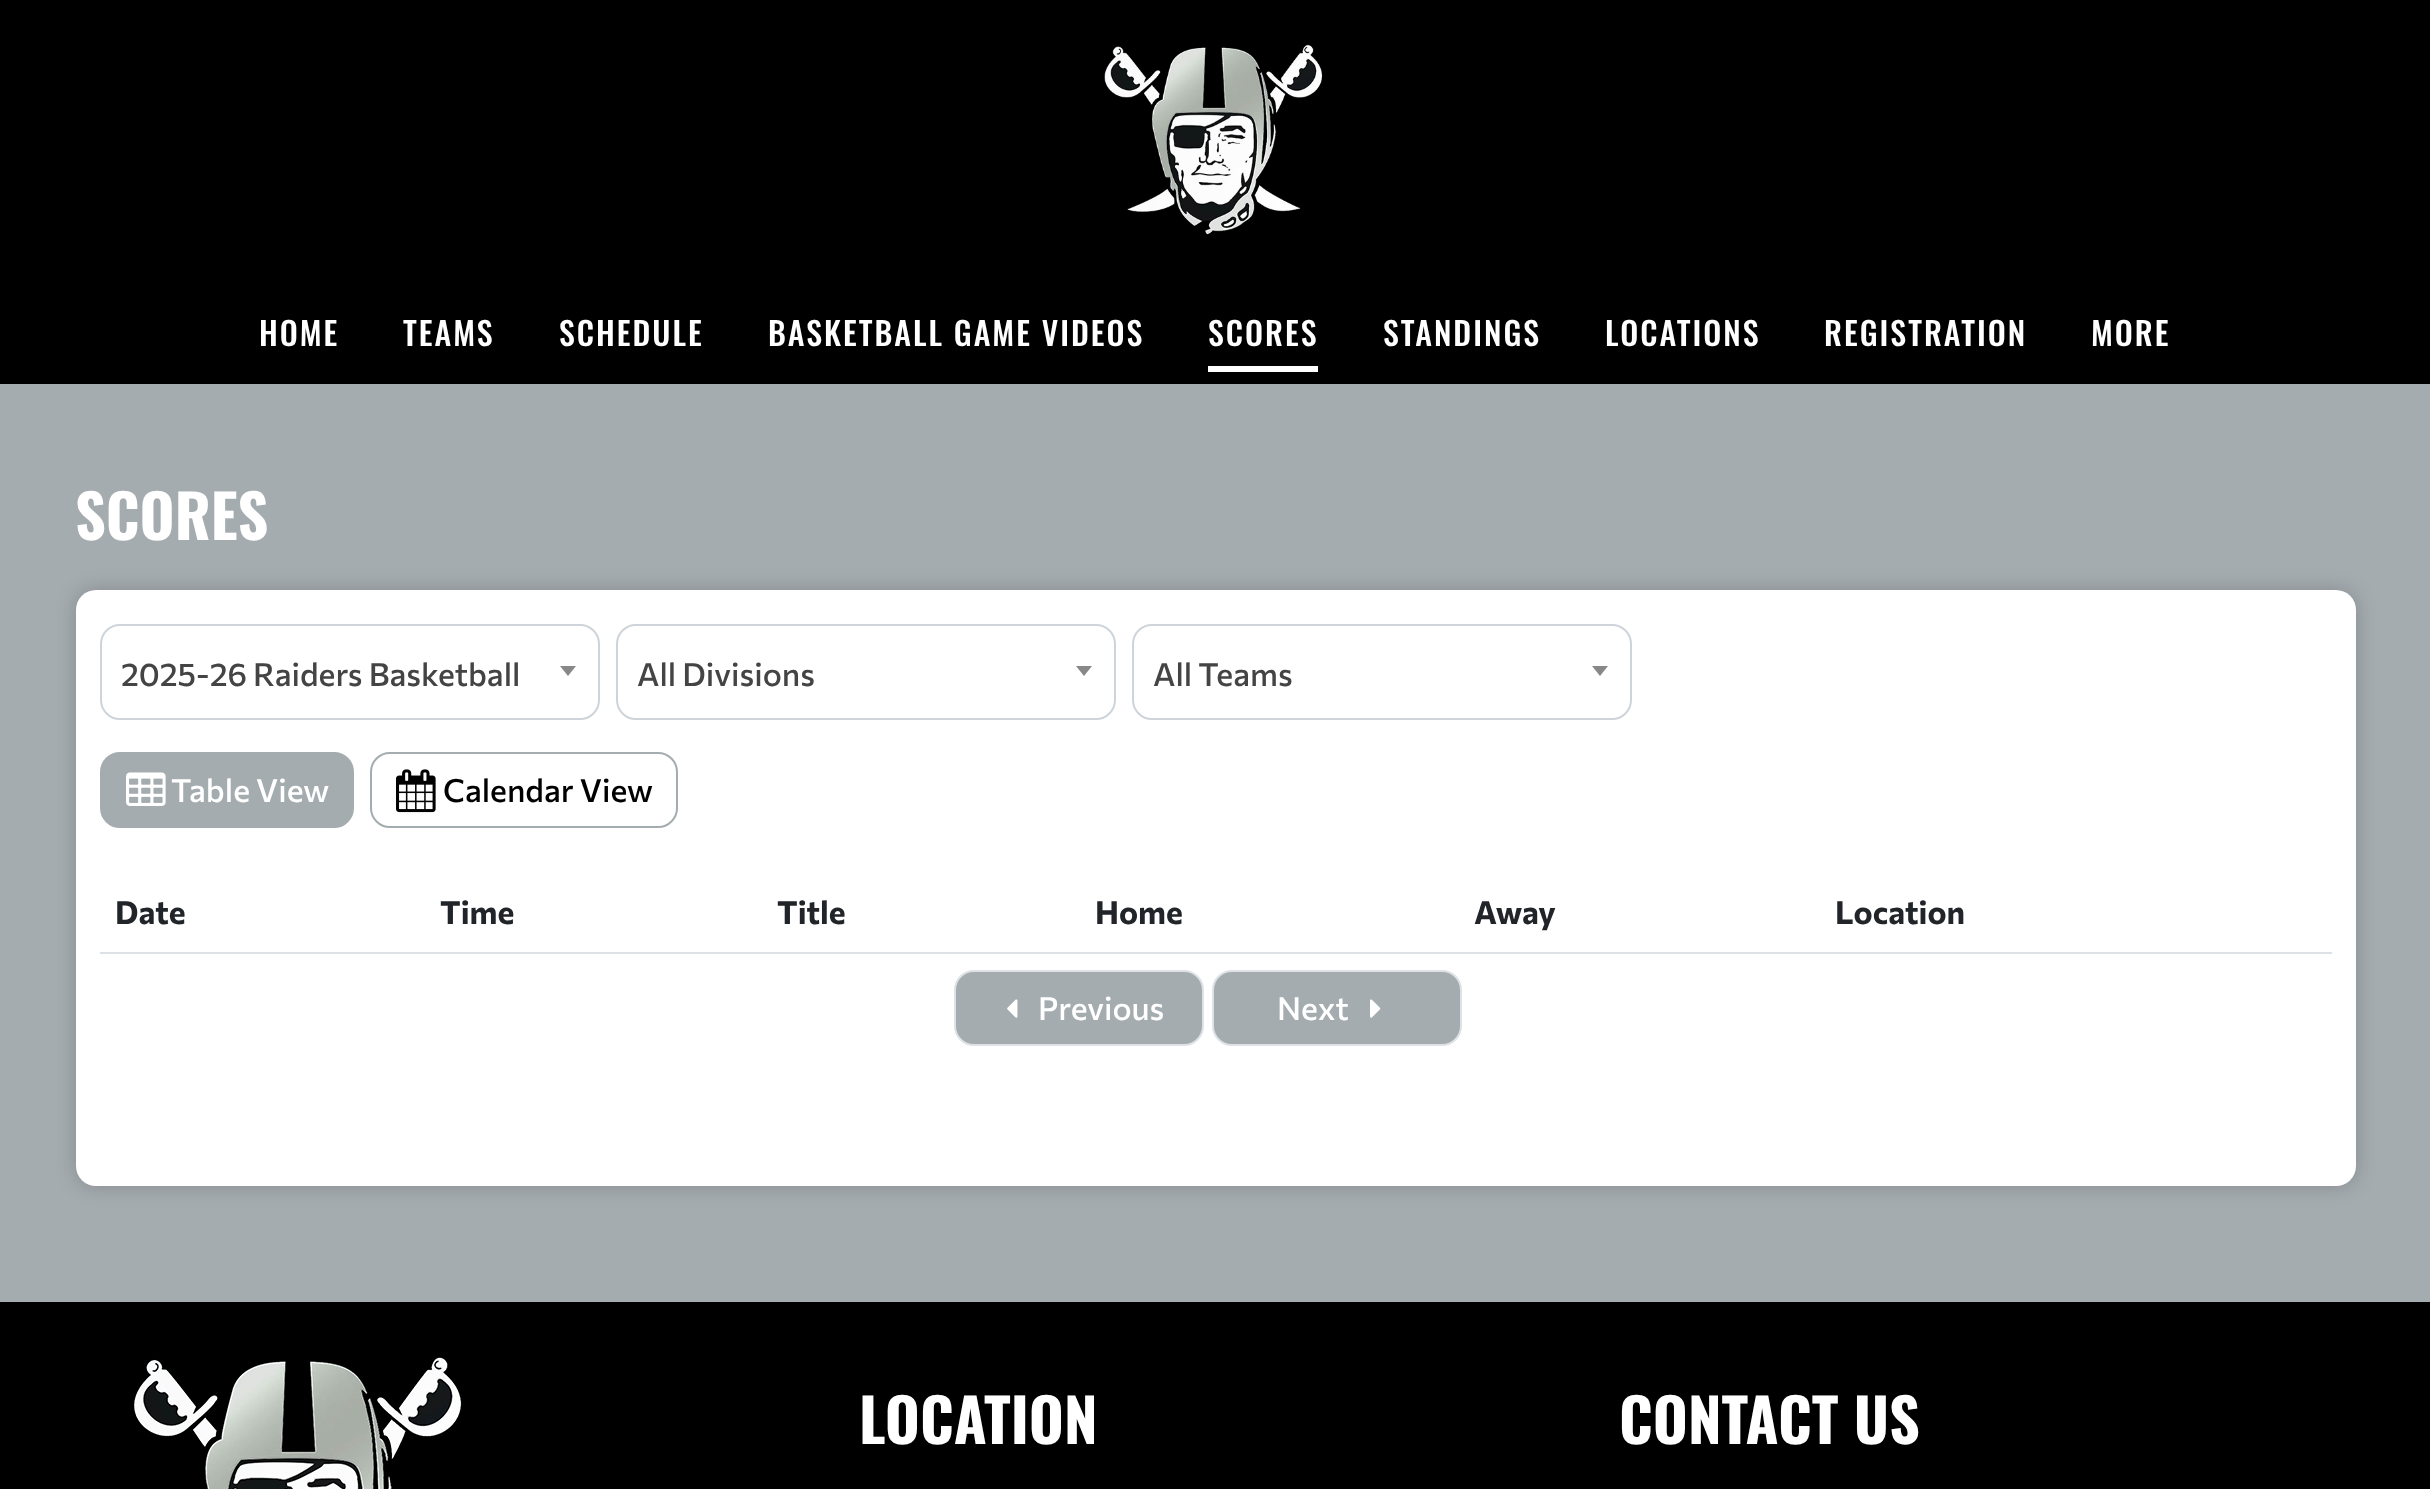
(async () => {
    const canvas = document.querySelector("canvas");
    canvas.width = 2430;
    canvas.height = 1489;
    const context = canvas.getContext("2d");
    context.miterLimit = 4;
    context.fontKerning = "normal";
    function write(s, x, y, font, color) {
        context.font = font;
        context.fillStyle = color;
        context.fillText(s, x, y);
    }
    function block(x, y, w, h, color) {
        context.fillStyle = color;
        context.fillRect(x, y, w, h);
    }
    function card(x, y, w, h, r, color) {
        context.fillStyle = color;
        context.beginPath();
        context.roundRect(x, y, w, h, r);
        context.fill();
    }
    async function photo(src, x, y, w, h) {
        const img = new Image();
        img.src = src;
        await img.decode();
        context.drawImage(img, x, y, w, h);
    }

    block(0, 0, 2430, 1489, "rgb(165, 172, 175)");
    block(0, 0, 2430, 384, "rgb(0, 0, 0)");
    await photo("media/1.png", 1104, 44, 219, 191);
    context.letterSpacing = "2px";
    write("HOME", 259, 346, "500 32px Oswald", "rgb(255, 255, 255)");
    write("TEAMS", 403, 346, "500 32px Oswald", "rgb(255, 255, 255)");
    write("SCHEDULE", 559, 346, "500 32px Oswald", "rgb(255, 255, 255)");
    write("BASKETBALL GAME VIDEOS", 768, 346, "500 32px Oswald", "rgb(255, 255, 255)");
    write("SCORES", 1208, 346, "500 32px Oswald", "rgb(255, 255, 255)");
    block(1208, 366, 110, 6, "rgb(255, 255, 255)");
    write("STANDINGS", 1383, 346, "500 32px Oswald", "rgb(255, 255, 255)");
    write("LOCATIONS", 1605, 346, "500 32px Oswald", "rgb(255, 255, 255)");
    write("REGISTRATION", 1824, 346, "500 32px Oswald", "rgb(255, 255, 255)");
    write("MORE", 2091, 346, "500 32px Oswald", "rgb(255, 255, 255)");
    context.letterSpacing = "0px";
    write("SCORES", 75, 540, "bold 60px Oswald", "rgb(255, 255, 255)");
    context.fillStyle = "rgba(0, 0, 0, 0.2)";
    context.filter = "blur(10px)";
    context.beginPath();
    context.roundRect(76, 590, 2280, 596, 20);
    context.fill();
    context.filter = "none";
    card(76, 590, 2280, 596, 20, "rgb(255, 255, 255)");
    context.beginPath();
    context.roundRect(101, 625, 498, 94, 19);
    context.strokeStyle = "rgb(206, 212, 218)";
    context.lineWidth = 2;
    context.stroke();
    write("2025-26 Raiders Basketball", 121, 686, "500 32px Commissioner", "rgb(68, 68, 68)");
    context.fillStyle = "rgb(136, 136, 136)";
    context.beginPath();
    context.moveTo(560, 666);
    context.lineTo(576, 666);
    context.lineTo(568, 676);
    context.closePath();
    context.fill();
    context.beginPath();
    context.roundRect(617, 625, 498, 94, 19);
    context.stroke();
    write("All Divisions", 637, 686, "500 32px Commissioner", "rgb(68, 68, 68)");
    context.fillStyle = "rgb(136, 136, 136)";
    context.beginPath();
    context.moveTo(1076, 666);
    context.lineTo(1092, 666);
    context.lineTo(1084, 676);
    context.closePath();
    context.fill();
    context.beginPath();
    context.roundRect(1133, 625, 498, 94, 19);
    context.stroke();
    write("All Teams", 1153, 686, "500 32px Commissioner", "rgb(68, 68, 68)");
    context.fillStyle = "rgb(136, 136, 136)";
    context.beginPath();
    context.moveTo(1592, 666);
    context.lineTo(1608, 666);
    context.lineTo(1600, 676);
    context.closePath();
    context.fill();
    context.fillStyle = "rgb(165, 172, 175)";
    context.beginPath();
    context.roundRect(101, 753, 252, 74, 19);
    context.fill();
    context.strokeStyle = "rgb(165, 172, 175)";
    context.stroke();
    await photo("media/2.png", 126, 772, 40, 34);
    write("Table View", 171, 802, "500 32px Commissioner", "rgb(255, 255, 255)");
    context.beginPath();
    context.roundRect(371, 753, 306, 74, 19);
    context.stroke();
    await photo("media/3.png", 396, 769, 40, 44);
    write("Calendar View", 443, 802, "500 32px Commissioner", "rgb(0, 0, 0)");
    block(100, 952, 2232, 2, "rgb(222, 226, 230)");
    write("Date", 115, 924, "bold 32px Commissioner", "rgb(33, 37, 41)");
    write("Time", 440, 924, "bold 32px Commissioner", "rgb(33, 37, 41)");
    write("Title", 777, 924, "bold 32px Commissioner", "rgb(33, 37, 41)");
    write("Home", 1095, 924, "bold 32px Commissioner", "rgb(33, 37, 41)");
    write("Away", 1474, 924, "bold 32px Commissioner", "rgb(33, 37, 41)");
    write("Location", 1835, 924, "bold 32px Commissioner", "rgb(33, 37, 41)");
    context.fillStyle = "rgb(165, 172, 175)";
    context.beginPath();
    context.roundRect(955, 971, 248, 74, 19);
    context.fill();
    context.strokeStyle = "rgb(222, 226, 230)";
    context.stroke();
    await photo("media/4.png", 1007, 999, 11, 19);
    write("Previous", 1038, 1020, "500 32px Commissioner", "rgb(255, 255, 255)");
    context.fillStyle = "rgb(165, 172, 175)";
    context.beginPath();
    context.roundRect(1213, 971, 248, 74, 19);
    context.fill();
    context.stroke();
    write("Next", 1277, 1020, "500 32px Commissioner", "rgb(255, 255, 255)");
    await photo("media/5.png", 1370, 999, 11, 19);
    block(0, 1302, 2430, 187, "rgb(0, 0, 0)");
    await photo("media/6.png", 134, 1357, 328, 132);
    write("LOCATION", 859, 1444, "bold 60px Oswald", "rgb(255, 255, 255)");
    write("CONTACT US", 1619, 1444, "bold 60px Oswald", "rgb(255, 255, 255)");
})();
